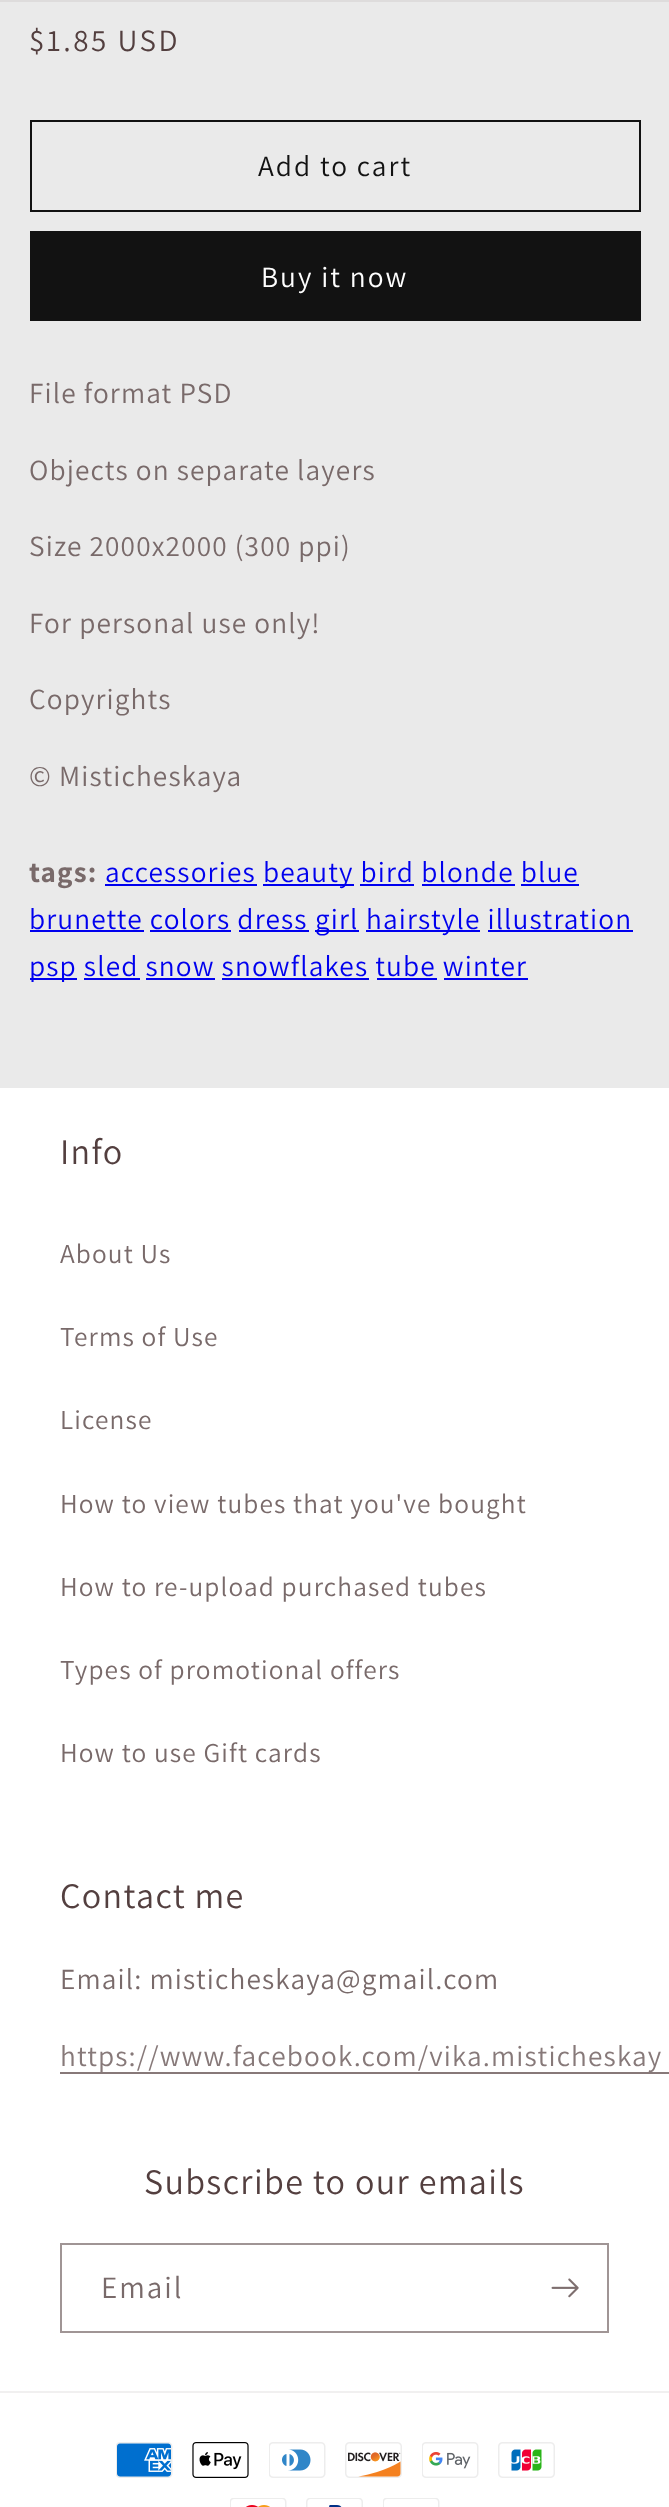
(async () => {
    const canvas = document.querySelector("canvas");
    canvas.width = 669;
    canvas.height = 2507;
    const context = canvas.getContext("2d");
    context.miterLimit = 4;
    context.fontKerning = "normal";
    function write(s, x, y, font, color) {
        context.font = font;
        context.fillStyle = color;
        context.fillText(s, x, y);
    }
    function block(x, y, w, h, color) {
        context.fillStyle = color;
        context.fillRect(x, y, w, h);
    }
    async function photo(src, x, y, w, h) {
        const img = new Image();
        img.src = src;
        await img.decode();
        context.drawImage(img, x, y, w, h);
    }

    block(0, 0, 669, 2507, "rgb(234, 234, 234)");
    block(0, 0, 669, 2, "rgb(222, 220, 220)");
    context.letterSpacing = "2.5px";
    write("$1.85 USD", 29, 51, "31px Assistant", "rgb(83, 63, 63)");
    context.strokeStyle = "rgb(18, 18, 18)";
    context.lineWidth = 2;
    context.strokeRect(31, 121, 609, 90);
    context.letterSpacing = "2px";
    write("Add to cart", 258, 176, "29.25px Assistant", "rgb(18, 18, 18)");
    block(30, 231, 611, 90, "rgb(18, 18, 18)");
    write("Buy it now", 261, 287, "29.25px Assistant", "rgb(255, 255, 255)");
    context.letterSpacing = "1.15px";
    write("File format PSD", 29, 403, "29.25px Assistant", "rgb(121, 106, 106)");
    write("Objects on separate layers", 29, 480, "29.25px Assistant", "rgb(121, 106, 106)");
    write("Size 2000x2000 (300 ppi)", 29, 556, "29.25px Assistant", "rgb(121, 106, 106)");
    write("For personal use only!", 29, 633, "29.25px Assistant", "rgb(121, 106, 106)");
    write("Copyrights", 29, 709, "29.25px Assistant", "rgb(121, 106, 106)");
    write("© Misticheskaya", 29, 786, "29.25px Assistant", "rgb(121, 106, 106)");
    write("tags:", 29, 882, "bold 29.25px Assistant", "rgb(121, 106, 106)");
    write("accessories", 105, 882, "29.25px Assistant", "rgb(0, 0, 238)");
    block(105, 884, 152, 2, "rgb(0, 0, 238)");
    block(263, 884, 91, 2, "rgb(0, 0, 238)");
    write("beauty bird blonde blue", 263, 882, "29.25px Assistant", "rgb(0, 0, 238)");
    block(360, 884, 54, 2, "rgb(0, 0, 238)");
    block(422, 884, 93, 2, "rgb(0, 0, 238)");
    block(521, 884, 58, 2, "rgb(0, 0, 238)");
    write("brunette colors dress", 29, 929, "29.25px Assistant", "rgb(0, 0, 238)");
    block(30, 930, 114, 2, "rgb(0, 0, 238)");
    block(315, 930, 44, 2, "rgb(0, 0, 238)");
    write("girl", 315, 929, "29.25px Assistant", "rgb(0, 0, 238)");
    block(366, 930, 114, 2, "rgb(0, 0, 238)");
    write("hairstyle illustration", 366, 929, "29.25px Assistant", "rgb(0, 0, 238)");
    block(150, 930, 81, 2, "rgb(0, 0, 238)");
    block(239, 930, 70, 2, "rgb(0, 0, 238)");
    block(488, 930, 145, 2, "rgb(0, 0, 238)");
    block(30, 978, 47, 2, "rgb(0, 0, 238)");
    write("psp sled snow snowflakes tube winter", 29, 976, "29.25px Assistant", "rgb(0, 0, 238)");
    block(84, 978, 56, 2, "rgb(0, 0, 238)");
    block(146, 978, 69, 2, "rgb(0, 0, 238)");
    block(222, 978, 147, 2, "rgb(0, 0, 238)");
    block(377, 978, 60, 2, "rgb(0, 0, 238)");
    block(444, 978, 84, 2, "rgb(0, 0, 238)");
    block(0, 1088, 669, 1419, "rgb(255, 255, 255)");
    context.letterSpacing = "1.35px";
    write("Info", 60, 1164, "36px Assistant", "rgb(83, 63, 63)");
    context.letterSpacing = "1.15px";
    write("About Us", 60, 1263, "27.25px Assistant", "rgb(121, 106, 106)");
    write("Terms of Use", 60, 1346, "27.25px Assistant", "rgb(121, 106, 106)");
    write("License", 60, 1429, "27.25px Assistant", "rgb(121, 106, 106)");
    write("How to view tubes that you've bought", 60, 1513, "27.25px Assistant", "rgb(121, 106, 106)");
    write("How to re-upload purchased tubes", 60, 1596, "27.25px Assistant", "rgb(121, 106, 106)");
    write("Types of promotional offers", 60, 1679, "27.25px Assistant", "rgb(121, 106, 106)");
    write("How to use Gift cards", 60, 1762, "27.25px Assistant", "rgb(121, 106, 106)");
    context.letterSpacing = "1.35px";
    write("Contact me", 60, 1908, "36px Assistant", "rgb(83, 63, 63)");
    context.letterSpacing = "1.15px";
    write("Email: misticheskaya@gmail.com", 60, 1989, "29.25px Assistant", "rgb(121, 106, 106)");
    block(60, 2072, 609, 2, "rgb(135, 121, 121)");
    write("https://www.facebook.com/vika.misticheskay", 60, 2066, "29.25px Assistant", "rgb(135, 121, 121)");
    context.letterSpacing = "1.35px";
    write("Subscribe to our emails", 144, 2194, "36px Assistant", "rgb(83, 63, 63)");
    context.strokeStyle = "rgb(160, 149, 149)";
    context.strokeRect(61, 2244, 547, 88);
    context.letterSpacing = "2px";
    write("Email", 101, 2298, "31px Assistant", "rgb(121, 106, 106)");
    await photo("media/1.png", 551, 2278, 28, 20);
    block(0, 2391, 669, 2, "rgb(241, 240, 240)");
    await photo("media/2.png", 116, 2442, 57, 36);
    await photo("media/3.png", 192, 2442, 57, 36);
    await photo("media/4.png", 269, 2442, 57, 36);
    await photo("media/5.png", 345, 2442, 57, 36);
    await photo("media/6.png", 422, 2442, 57, 36);
    await photo("media/7.png", 498, 2442, 57, 36);
    await photo("media/8.png", 230, 2498, 57, 9);
    await photo("media/9.png", 306, 2498, 57, 9);
    await photo("media/10.png", 383, 2498, 57, 9);
})();
